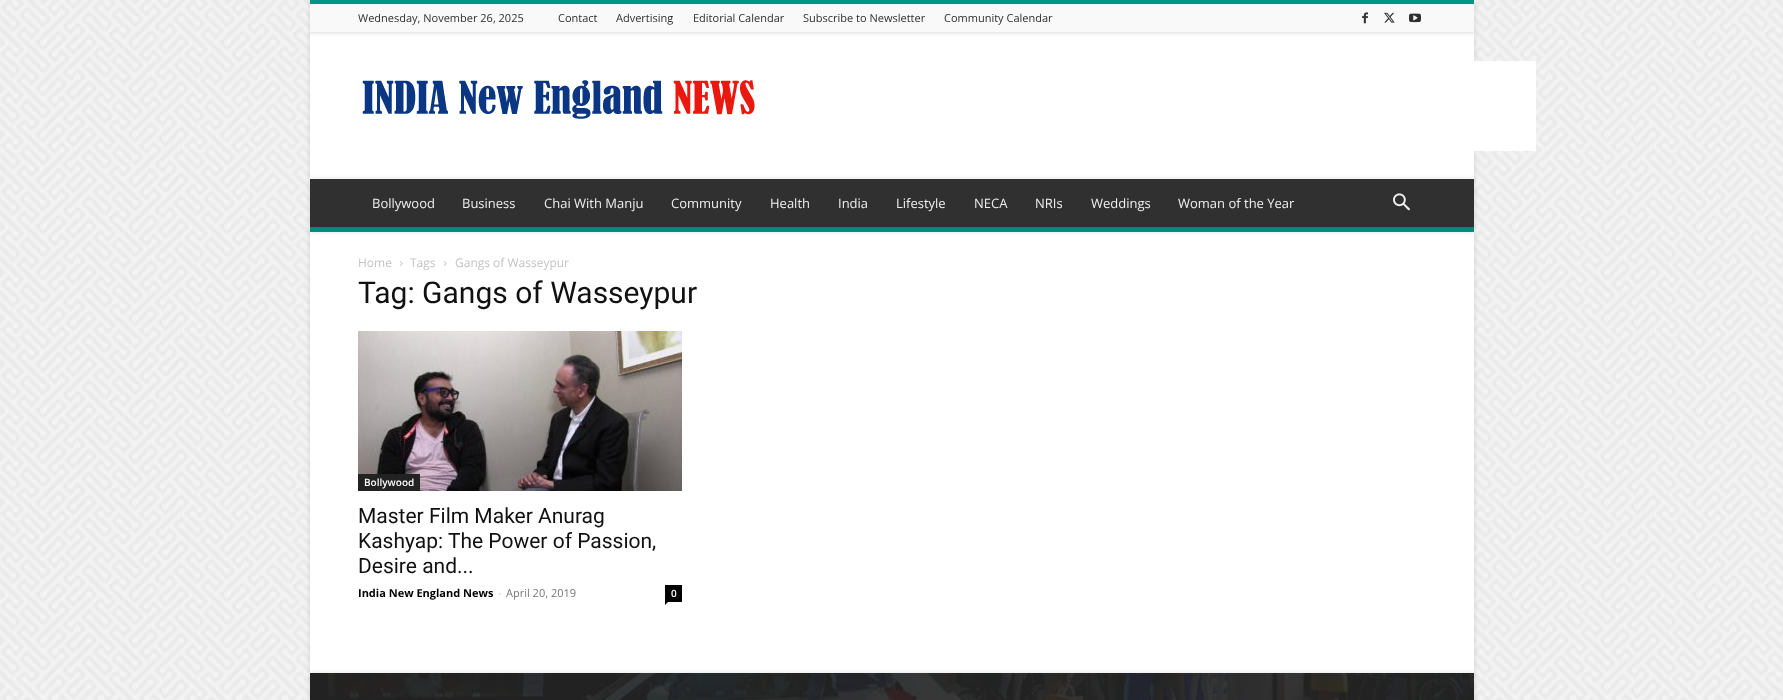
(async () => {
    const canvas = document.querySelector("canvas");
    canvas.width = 1783;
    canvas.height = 700;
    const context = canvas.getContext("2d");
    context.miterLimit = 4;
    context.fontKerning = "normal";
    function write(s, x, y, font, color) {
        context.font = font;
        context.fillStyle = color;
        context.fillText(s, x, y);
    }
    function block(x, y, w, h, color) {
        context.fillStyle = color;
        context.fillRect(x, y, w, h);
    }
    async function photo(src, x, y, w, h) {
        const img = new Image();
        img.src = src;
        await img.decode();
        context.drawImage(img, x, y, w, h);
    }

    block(0, 0, 1783, 700, "rgb(255, 255, 255)");
    await photo("media/1.png", 0, 0, 1783, 700);
    context.fillStyle = "rgba(0, 0, 0, 0.12)";
    context.filter = "blur(2.5px)";
    context.beginPath();
    context.rect(310, 33, 1164, 146);
    context.fill();
    context.filter = "none";
    block(310, 33, 1164, 146, "rgb(255, 255, 255)");
    context.fillStyle = "rgba(0, 0, 0, 0.12)";
    context.filter = "blur(2.5px)";
    context.beginPath();
    context.rect(310, 0, 1164, 33);
    context.fill();
    context.filter = "none";
    block(310, 4, 1164, 28, "rgb(249, 249, 249)");
    block(310, 0, 1164, 4, "rgb(0, 150, 136)");
    block(310, 32, 1164, 1, "rgb(233, 233, 233)");
    write("Wednesday, November 26, 2025", 358, 22, "11px Open Sans", "rgb(47, 47, 47)");
    write("Contact", 558, 22, "11px Open Sans", "rgb(47, 47, 47)");
    write("Advertising", 616, 22, "11px Open Sans", "rgb(47, 47, 47)");
    write("Editorial Calendar", 693, 22, "11px Open Sans", "rgb(47, 47, 47)");
    write("Subscribe to Newsletter", 803, 22, "11px Open Sans", "rgb(47, 47, 47)");
    write("Community Calendar", 944, 22, "11px Open Sans", "rgb(47, 47, 47)");
    await photo("media/2.png", 1362, 12, 6, 12);
    await photo("media/3.png", 1384, 12, 11, 11);
    await photo("media/4.png", 1409, 13, 12, 10);
    await photo("media/5.png", 362, 80, 393, 39);
    block(1474, 61, 62, 90, "rgb(255, 255, 255)");
    context.fillStyle = "rgba(0, 0, 0, 0.12)";
    context.filter = "blur(2.5px)";
    context.beginPath();
    context.rect(310, 232, 1164, 441);
    context.fill();
    context.filter = "none";
    block(310, 232, 1164, 441, "rgb(255, 255, 255)");
    context.fillStyle = "rgba(0, 0, 0, 0.12)";
    context.filter = "blur(2.5px)";
    context.beginPath();
    context.rect(310, 179, 1164, 53);
    context.fill();
    context.filter = "none";
    block(310, 179, 1164, 48, "rgb(48, 48, 48)");
    write("Bollywood", 372, 208, "13px Open Sans", "rgb(239, 239, 239)");
    write("Business", 462, 208, "13px Open Sans", "rgb(239, 239, 239)");
    write("Chai With Manju", 544, 208, "13px Open Sans", "rgb(239, 239, 239)");
    write("Community", 671, 208, "13px Open Sans", "rgb(239, 239, 239)");
    write("Health", 770, 208, "13px Open Sans", "rgb(239, 239, 239)");
    write("India", 838, 208, "13px Open Sans", "rgb(239, 239, 239)");
    write("Lifestyle", 896, 208, "13px Open Sans", "rgb(239, 239, 239)");
    write("NECA", 974, 208, "13px Open Sans", "rgb(239, 239, 239)");
    write("NRIs", 1035, 208, "13px Open Sans", "rgb(239, 239, 239)");
    write("Weddings", 1091, 208, "13px Open Sans", "rgb(239, 239, 239)");
    write("Woman of the Year", 1178, 208, "13px Open Sans", "rgb(239, 239, 239)");
    await photo("media/6.png", 1393, 193, 17, 18);
    block(310, 227, 1164, 5, "rgb(0, 150, 136)");
    await photo("media/7.png", 310, 227, 1164, 5);
    write("Home", 358, 267, "12px Open Sans", "rgb(195, 195, 195)");
    await photo("media/8.png", 400, 261, 3, 5);
    write("Tags", 410, 267, "12px Open Sans", "rgb(195, 195, 195)");
    await photo("media/8.png", 444, 261, 3, 5);
    write("Gangs of Wasseypur", 455, 267, "12px Open Sans", "rgb(195, 195, 195)");
    write("Tag: Gangs of Wasseypur", 358, 303, "30px Roboto", "rgb(17, 17, 17)");
    await photo("media/9.png", 358, 331, 324, 160);
    block(358, 474, 62, 17, "rgb(34, 34, 34)");
    write("Bollywood", 364, 486, "600 10px Open Sans", "rgb(255, 255, 255)");
    write("Master Film Maker Anurag", 358, 523, "21px Roboto", "rgb(17, 17, 17)");
    write("Kashyap: The Power of Passion,", 358, 548, "21px Roboto", "rgb(17, 17, 17)");
    write("Desire and...", 358, 573, "21px Roboto", "rgb(17, 17, 17)");
    write("India New England News", 358, 597, "bold 11px Open Sans", "rgb(0, 0, 0)");
    write("-", 498, 597, "11px Open Sans", "rgb(204, 204, 204)");
    write("April 20, 2019", 506, 597, "11px Open Sans", "rgb(118, 118, 118)");
    block(665, 585, 17, 17, "rgb(0, 0, 0)");
    write("0", 671, 597, "600 10px Open Sans", "rgb(255, 255, 255)");
    context.fillStyle = "rgb(0, 0, 0)";
    context.beginPath();
    context.moveTo(665, 602);
    context.lineTo(668, 602);
    context.lineTo(665, 605);
    context.closePath();
    context.fill();
    context.fillStyle = "rgba(0, 0, 0, 0.12)";
    context.filter = "blur(2.5px)";
    context.beginPath();
    context.rect(310, 673, 1164, 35);
    context.fill();
    context.filter = "none";
    block(310, 673, 1164, 27, "rgb(34, 34, 34)");
    await photo("media/10.png", 328, 673, 1146, 27);
})();
